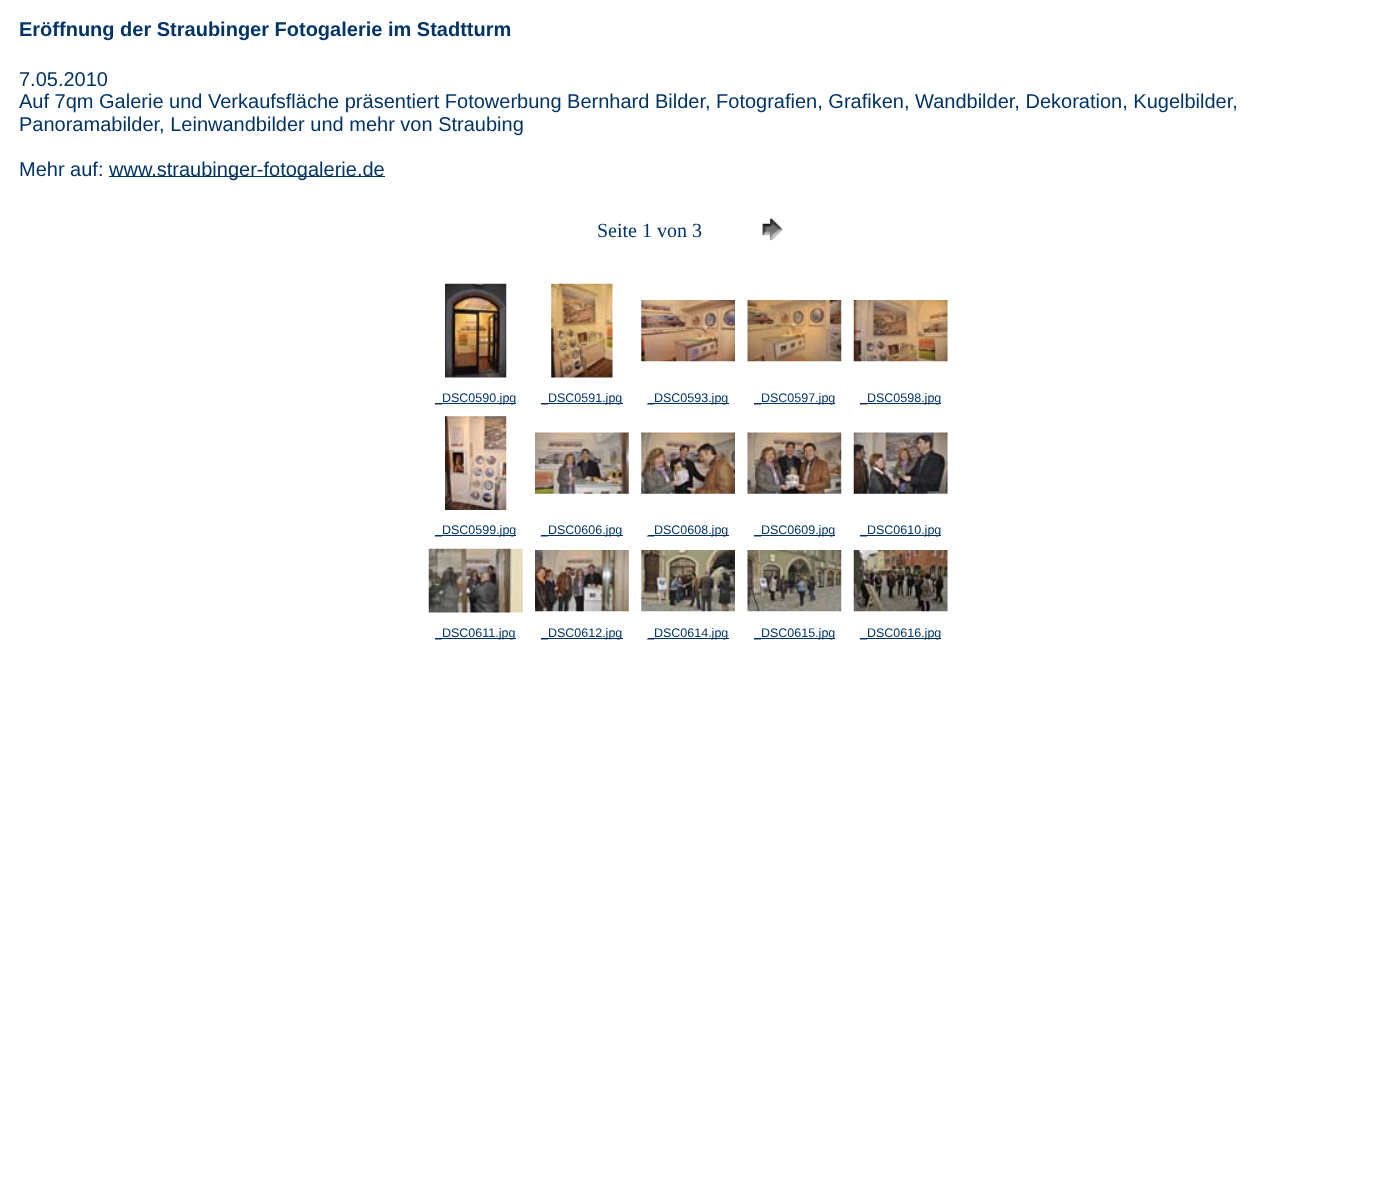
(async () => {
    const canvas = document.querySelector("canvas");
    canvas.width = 1376;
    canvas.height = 1198;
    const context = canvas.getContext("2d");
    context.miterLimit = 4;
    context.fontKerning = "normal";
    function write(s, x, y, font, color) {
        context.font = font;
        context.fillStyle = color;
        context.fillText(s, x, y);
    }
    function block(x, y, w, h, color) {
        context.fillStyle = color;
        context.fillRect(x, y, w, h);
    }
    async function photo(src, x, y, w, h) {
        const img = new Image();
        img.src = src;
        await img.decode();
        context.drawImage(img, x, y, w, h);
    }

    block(0, 0, 1376, 1198, "rgb(255, 255, 255)");
    write("Eröffnung der Straubinger Fotogalerie im Stadtturm", 19, 36, "bold 20px Liberation Sans", "rgb(0, 51, 102)");
    write("7.05.2010", 19, 86, "20px Liberation Sans", "rgb(0, 51, 102)");
    write("Auf 7qm Galerie und Verkaufsfläche präsentiert Fotowerbung Bernhard Bilder, Fotografien, Grafiken, Wandbilder, Dekoration, Kugelbilder,", 19, 108, "20px Liberation Sans", "rgb(0, 51, 102)");
    write("Panoramabilder, Leinwandbilder und mehr von Straubing", 19, 131, "20px Liberation Sans", "rgb(0, 51, 102)");
    write("Mehr auf:", 19, 176, "20px Liberation Sans", "rgb(0, 51, 102)");
    block(109, 176, 276, 1, "rgb(0, 51, 102)");
    write("www.straubinger-fotogalerie.de", 109, 176, "20px Liberation Sans", "rgb(0, 51, 102)");
    write("Seite 1 von 3", 597, 237, "20px Liberation Serif", "rgb(0, 51, 102)");
    await photo("media/1.png", 762, 218, 21, 23);
    await photo("media/2.png", 445, 283, 62, 95);
    await photo("media/3.png", 551, 283, 62, 95);
    await photo("media/4.png", 641, 300, 94, 62);
    await photo("media/5.png", 747, 300, 95, 62);
    await photo("media/6.png", 853, 300, 95, 62);
    block(435, 403, 81, 1, "rgb(0, 51, 102)");
    write("_DSC0590.jpg", 435, 402, "12.5px Liberation Sans", "rgb(0, 51, 102)");
    block(541, 403, 82, 1, "rgb(0, 51, 102)");
    write("_DSC0591.jpg", 541, 402, "12.5px Liberation Sans", "rgb(0, 51, 102)");
    block(648, 403, 81, 1, "rgb(0, 51, 102)");
    write("_DSC0593.jpg", 647, 402, "12.5px Liberation Sans", "rgb(0, 51, 102)");
    block(754, 403, 81, 1, "rgb(0, 51, 102)");
    write("_DSC0597.jpg", 754, 402, "12.5px Liberation Sans", "rgb(0, 51, 102)");
    block(860, 403, 81, 1, "rgb(0, 51, 102)");
    write("_DSC0598.jpg", 860, 402, "12.5px Liberation Sans", "rgb(0, 51, 102)");
    await photo("media/7.png", 445, 416, 62, 94);
    await photo("media/8.png", 535, 432, 94, 62);
    await photo("media/9.png", 641, 432, 94, 62);
    await photo("media/10.png", 747, 432, 95, 62);
    await photo("media/11.png", 853, 432, 95, 62);
    block(435, 535, 81, 1, "rgb(0, 51, 102)");
    write("_DSC0599.jpg", 435, 534, "12.5px Liberation Sans", "rgb(0, 51, 102)");
    block(541, 535, 82, 1, "rgb(0, 51, 102)");
    write("_DSC0606.jpg", 541, 534, "12.5px Liberation Sans", "rgb(0, 51, 102)");
    block(648, 535, 81, 1, "rgb(0, 51, 102)");
    write("_DSC0608.jpg", 647, 534, "12.5px Liberation Sans", "rgb(0, 51, 102)");
    block(754, 535, 81, 1, "rgb(0, 51, 102)");
    write("_DSC0609.jpg", 754, 534, "12.5px Liberation Sans", "rgb(0, 51, 102)");
    block(860, 535, 81, 1, "rgb(0, 51, 102)");
    write("_DSC0610.jpg", 860, 534, "12.5px Liberation Sans", "rgb(0, 51, 102)");
    await photo("media/12.png", 428, 548, 95, 65);
    await photo("media/13.png", 535, 550, 94, 62);
    await photo("media/14.png", 641, 550, 94, 62);
    await photo("media/15.png", 747, 550, 95, 62);
    await photo("media/16.png", 853, 550, 95, 62);
    block(435, 638, 81, 1, "rgb(0, 51, 102)");
    write("_DSC0611.jpg", 435, 637, "12.5px Liberation Sans", "rgb(0, 51, 102)");
    block(541, 638, 82, 1, "rgb(0, 51, 102)");
    write("_DSC0612.jpg", 541, 637, "12.5px Liberation Sans", "rgb(0, 51, 102)");
    block(648, 638, 81, 1, "rgb(0, 51, 102)");
    write("_DSC0614.jpg", 647, 637, "12.5px Liberation Sans", "rgb(0, 51, 102)");
    block(754, 638, 81, 1, "rgb(0, 51, 102)");
    write("_DSC0615.jpg", 754, 637, "12.5px Liberation Sans", "rgb(0, 51, 102)");
    block(860, 638, 81, 1, "rgb(0, 51, 102)");
    write("_DSC0616.jpg", 860, 637, "12.5px Liberation Sans", "rgb(0, 51, 102)");
})();
